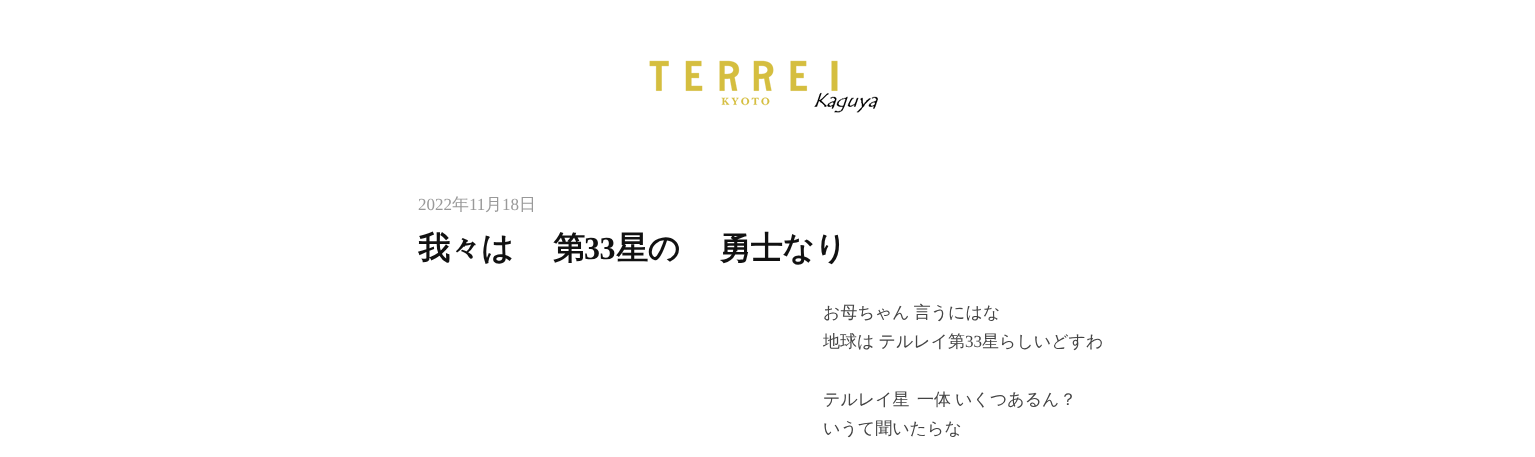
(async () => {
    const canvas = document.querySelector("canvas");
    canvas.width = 1535;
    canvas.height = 457;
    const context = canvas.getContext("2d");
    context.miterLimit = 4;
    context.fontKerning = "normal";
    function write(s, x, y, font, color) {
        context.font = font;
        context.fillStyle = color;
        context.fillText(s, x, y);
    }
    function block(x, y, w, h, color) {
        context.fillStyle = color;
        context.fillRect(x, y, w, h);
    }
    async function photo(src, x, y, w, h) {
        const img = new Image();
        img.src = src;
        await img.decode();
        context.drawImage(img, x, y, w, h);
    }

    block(0, 0, 1535, 457, "rgb(255, 255, 255)");
    await photo("media/1.png", 649, 60, 229, 53);
    write("2022", 418, 210, "17px Liberation Serif", "rgb(153, 153, 153)");
    write("年", 452, 210, "500 17px WenQuanYi Zen Hei", "rgb(153, 153, 153)");
    write("11", 469, 210, "17px Liberation Serif", "rgb(153, 153, 153)");
    write("月", 485, 210, "500 17px WenQuanYi Zen Hei", "rgb(153, 153, 153)");
    write("18", 502, 210, "17px Liberation Serif", "rgb(153, 153, 153)");
    write("日", 519, 210, "500 17px WenQuanYi Zen Hei", "rgb(153, 153, 153)");
    context.letterSpacing = "-0.5px";
    write("我々は", 418, 259, "bold 32px WenQuanYi Zen Hei", "rgb(17, 17, 17)");
    write("第", 553, 259, "bold 32px WenQuanYi Zen Hei", "rgb(17, 17, 17)");
    write("33", 584, 259, "bold 32px Liberation Serif", "rgb(17, 17, 17)");
    write("星の", 616, 259, "bold 32px WenQuanYi Zen Hei", "rgb(17, 17, 17)");
    write("勇士なり", 719, 259, "bold 32px WenQuanYi Zen Hei", "rgb(17, 17, 17)");
    context.letterSpacing = "0px";
    context.wordSpacing = "-1px";
    write("お母ちゃん 言うにはな", 823, 318, "500 17px WenQuanYi Zen Hei", "rgb(68, 68, 68)");
    write("地球は テルレイ第", 823, 347, "500 17px WenQuanYi Zen Hei", "rgb(68, 68, 68)");
    context.wordSpacing = "0px";
    write("33", 965, 347, "17px Liberation Serif", "rgb(68, 68, 68)");
    write("星らしいどすわ", 982, 347, "500 17px WenQuanYi Zen Hei", "rgb(68, 68, 68)");
    write("テルレイ星", 823, 405, "500 17px WenQuanYi Zen Hei", "rgb(68, 68, 68)");
    context.wordSpacing = "-1px";
    write("一体 いくつあるん？", 917, 405, "500 17px WenQuanYi Zen Hei", "rgb(68, 68, 68)");
    context.wordSpacing = "0px";
    write("いうて聞いたらな", 823, 434, "500 17px WenQuanYi Zen Hei", "rgb(68, 68, 68)");
})();
